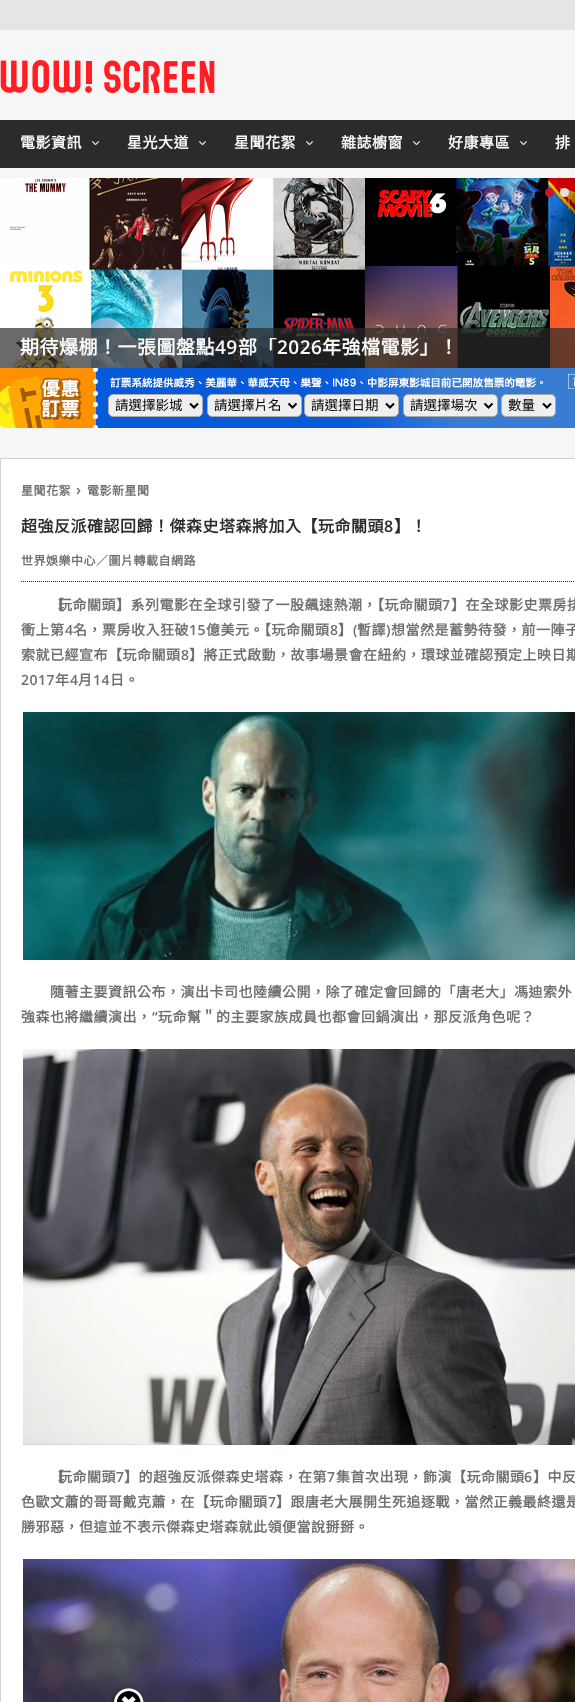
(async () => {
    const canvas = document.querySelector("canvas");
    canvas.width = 575;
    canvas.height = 1702;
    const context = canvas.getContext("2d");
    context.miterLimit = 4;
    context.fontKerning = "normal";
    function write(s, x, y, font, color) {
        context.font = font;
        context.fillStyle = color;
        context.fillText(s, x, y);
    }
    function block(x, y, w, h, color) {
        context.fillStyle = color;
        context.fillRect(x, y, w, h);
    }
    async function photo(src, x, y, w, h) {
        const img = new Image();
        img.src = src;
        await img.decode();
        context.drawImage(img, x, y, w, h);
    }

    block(0, 0, 575, 1702, "rgb(246, 246, 246)");
    block(0, 0, 575, 30, "rgb(229, 229, 229)");
    await photo("media/1.png", 0, 60, 215, 33);
    block(0, 120, 575, 48, "rgb(43, 43, 43)");
    await photo("media/2.png", 92, 141, 7, 4);
    context.letterSpacing = "0.5px";
    write("電影資訊", 20, 148, "bold 15px Noto Sans CJK TC", "rgb(250, 250, 250)");
    await photo("media/2.png", 199, 141, 7, 4);
    write("星光大道", 127, 148, "bold 15px Noto Sans CJK TC", "rgb(250, 250, 250)");
    await photo("media/2.png", 306, 141, 7, 4);
    write("星聞花絮", 234, 148, "bold 15px Noto Sans CJK TC", "rgb(250, 250, 250)");
    await photo("media/2.png", 413, 141, 7, 4);
    write("雜誌櫥窗", 341, 148, "bold 15px Noto Sans CJK TC", "rgb(250, 250, 250)");
    await photo("media/2.png", 520, 141, 7, 4);
    write("好康專區", 448, 148, "bold 15px Noto Sans CJK TC", "rgb(250, 250, 250)");
    write("排", 555, 148, "bold 15px Noto Sans CJK TC", "rgb(250, 250, 250)");
    await photo("media/3.png", 0, 178, 575, 190);
    context.fillStyle = "rgb(204, 22, 35)";
    context.beginPath();
    context.arc(549.5, 192.5, 4.5, 0, Math.PI * 2);
    context.fill();
    context.fillStyle = "rgb(226, 226, 226)";
    context.beginPath();
    context.arc(564.5, 192.5, 4.5, 0, Math.PI * 2);
    context.fill();
    block(0, 328, 575, 40, "rgba(43, 43, 43, 0.7)");
    write("期待爆棚！一張圖盤點", 20, 354, "bold 19px Noto Sans CJK TC", "rgb(250, 250, 250)");
    write("49", 215, 354, "600 19px Open Sans", "rgb(250, 250, 250)");
    context.save();
    context.beginPath();
    context.rect(5, 338, 520, 19);
    context.clip();
    write("部「", 238, 354, "bold 19px Noto Sans CJK TC", "rgb(250, 250, 250)");
    context.restore();
    write("2026", 277, 354, "600 19px Open Sans", "rgb(250, 250, 250)");
    write("年強檔電影」！", 322, 354, "bold 19px Noto Sans CJK TC", "rgb(250, 250, 250)");
    await photo("media/4.png", 0, 368, 575, 60);
    await photo("media/5.png", 568, 374, 7, 15);
    context.fillStyle = "rgb(239, 239, 239)";
    context.beginPath();
    context.roundRect(108.5, 394.5, 94, 22, 4.5);
    context.fill();
    context.strokeStyle = "rgb(170, 170, 170)";
    context.stroke();
    context.beginPath();
    context.moveTo(190, 403.5);
    context.lineTo(194, 407.5);
    context.lineTo(198, 403.5);
    context.strokeStyle = "rgb(0, 0, 0)";
    context.lineWidth = 2;
    context.stroke();
    context.letterSpacing = "0px";
    write("請選擇影城", 115, 410, "13.5px Noto Sans CJK TC", "rgb(0, 0, 0)");
    context.fillStyle = "rgb(239, 239, 239)";
    context.beginPath();
    context.roundRect(207.5, 394.5, 94, 22, 4.5);
    context.fill();
    context.strokeStyle = "rgb(170, 170, 170)";
    context.lineWidth = 1;
    context.stroke();
    context.beginPath();
    context.moveTo(288.5, 403.5);
    context.lineTo(292.5, 407.5);
    context.lineTo(296.5, 403.5);
    context.strokeStyle = "rgb(0, 0, 0)";
    context.lineWidth = 2;
    context.stroke();
    write("請選擇片名", 214, 410, "13.5px Noto Sans CJK TC", "rgb(0, 0, 0)");
    context.fillStyle = "rgb(239, 239, 239)";
    context.beginPath();
    context.roundRect(304.5, 394.5, 94, 22, 4.5);
    context.fill();
    context.strokeStyle = "rgb(170, 170, 170)";
    context.lineWidth = 1;
    context.stroke();
    context.beginPath();
    context.moveTo(386, 403.5);
    context.lineTo(390, 407.5);
    context.lineTo(394, 403.5);
    context.strokeStyle = "rgb(0, 0, 0)";
    context.lineWidth = 2;
    context.stroke();
    write("請選擇日期", 311, 410, "13.5px Noto Sans CJK TC", "rgb(0, 0, 0)");
    context.fillStyle = "rgb(239, 239, 239)";
    context.beginPath();
    context.roundRect(403.5, 394.5, 94, 22, 4.5);
    context.fill();
    context.strokeStyle = "rgb(170, 170, 170)";
    context.lineWidth = 1;
    context.stroke();
    context.beginPath();
    context.moveTo(484.5, 403.5);
    context.lineTo(488.5, 407.5);
    context.lineTo(492.5, 403.5);
    context.strokeStyle = "rgb(0, 0, 0)";
    context.lineWidth = 2;
    context.stroke();
    write("請選擇場次", 410, 410, "13.5px Noto Sans CJK TC", "rgb(0, 0, 0)");
    context.fillStyle = "rgb(239, 239, 239)";
    context.beginPath();
    context.roundRect(501.5, 394.5, 54, 22, 4.5);
    context.fill();
    context.strokeStyle = "rgb(170, 170, 170)";
    context.lineWidth = 1;
    context.stroke();
    context.beginPath();
    context.moveTo(543, 403.5);
    context.lineTo(547, 407.5);
    context.lineTo(551, 403.5);
    context.strokeStyle = "rgb(0, 0, 0)";
    context.lineWidth = 2;
    context.stroke();
    write("數量", 508, 410, "13.5px Noto Sans CJK TC", "rgb(0, 0, 0)");
    context.fillStyle = "rgb(255, 255, 255)";
    context.beginPath();
    context.rect(0.5, 458.5, 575, 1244);
    context.fill();
    context.strokeStyle = "rgb(210, 210, 210)";
    context.lineWidth = 1;
    context.stroke();
    context.letterSpacing = "0.5px";
    write("星聞花絮", 21, 495, "bold 12px Noto Sans CJK TC", "rgb(111, 111, 111)");
    write("›", 76, 495, "600 15px Open Sans", "rgb(111, 111, 111)");
    write("電影新星聞", 87, 495, "bold 12px Noto Sans CJK TC", "rgb(111, 111, 111)");
    write("超強反派確認回歸！傑森史塔森將加入【玩命關頭", 21, 532, "bold 16px Noto Sans CJK TC", "rgb(43, 43, 43)");
    write("8", 384, 532, "600 16px Open Sans", "rgb(43, 43, 43)");
    write("】！", 394, 532, "bold 16px Noto Sans CJK TC", "rgb(43, 43, 43)");
    write("世界娛樂中心／圖片轉載自網路", 21, 565, "bold 12px Noto Sans CJK TC", "rgb(111, 111, 111)");
    context.beginPath();
    context.moveTo(21, 581.5);
    context.lineTo(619, 581.5);
    context.strokeStyle = "rgb(43, 43, 43)";
    context.setLineDash([1, 1]);
    context.stroke();
    write("【", 50, 610, "bold 14px Noto Sans CJK TC", "rgb(111, 111, 111)");
    write("玩命關頭】系列電影在全球引發了一股飆速熱潮，【玩命關頭", 58, 610, "bold 14px Noto Sans CJK TC", "rgb(111, 111, 111)");
    write("7", 442, 610, "600 14px Open Sans", "rgb(111, 111, 111)");
    write("】在全球影史票房排", 451, 610, "bold 14px Noto Sans CJK TC", "rgb(111, 111, 111)");
    write("衝上第", 21, 635, "bold 14px Noto Sans CJK TC", "rgb(111, 111, 111)");
    write("4", 65, 635, "600 14px Open Sans", "rgb(111, 111, 111)");
    write("名，票房收入狂破", 73, 635, "bold 14px Noto Sans CJK TC", "rgb(111, 111, 111)");
    write("15", 189, 635, "600 14px Open Sans", "rgb(111, 111, 111)");
    write("億美元。【玩命關頭", 206, 635, "bold 14px Noto Sans CJK TC", "rgb(111, 111, 111)");
    write("8", 330, 635, "600 14px Open Sans", "rgb(111, 111, 111)");
    write("】", 338, 635, "bold 14px Noto Sans CJK TC", "rgb(111, 111, 111)");
    write("(", 353, 635, "600 14px Open Sans", "rgb(111, 111, 111)");
    write("暫譯", 357, 635, "bold 14px Noto Sans CJK TC", "rgb(111, 111, 111)");
    write(")", 386, 635, "600 14px Open Sans", "rgb(111, 111, 111)");
    write("想當然是蓄勢待發，前一陣子", 391, 635, "bold 14px Noto Sans CJK TC", "rgb(111, 111, 111)");
    write("索就已經宣布【玩命關頭", 21, 660, "bold 14px Noto Sans CJK TC", "rgb(111, 111, 111)");
    write("8", 181, 660, "600 14px Open Sans", "rgb(111, 111, 111)");
    write("】將正式啟動，故事場景會在紐約，環球並確認預定上映日期", 189, 660, "bold 14px Noto Sans CJK TC", "rgb(111, 111, 111)");
    write("2017", 21, 685, "600 14px Open Sans", "rgb(111, 111, 111)");
    write("年", 55, 685, "bold 14px Noto Sans CJK TC", "rgb(111, 111, 111)");
    write("4", 70, 685, "600 14px Open Sans", "rgb(111, 111, 111)");
    write("月", 78, 685, "bold 14px Noto Sans CJK TC", "rgb(111, 111, 111)");
    write("14", 93, 685, "600 14px Open Sans", "rgb(111, 111, 111)");
    write("日。", 110, 685, "bold 14px Noto Sans CJK TC", "rgb(111, 111, 111)");
    await photo("media/6.png", 23, 712, 552, 248);
    write("隨著主要資訊公布，演出卡司也陸續公開，除了確定會回歸的「唐老大」馮迪索外", 50, 997, "bold 14px Noto Sans CJK TC", "rgb(111, 111, 111)");
    write("強森也將繼續演出，", 21, 1022, "bold 14px Noto Sans CJK TC", "rgb(111, 111, 111)");
    write("“", 152, 1022, "600 14px Open Sans", "rgb(111, 111, 111)");
    write("玩命幫＂的主要家族成員也都會回鍋演出，那反派角色呢？", 158, 1022, "bold 14px Noto Sans CJK TC", "rgb(111, 111, 111)");
    await photo("media/7.png", 23, 1049, 552, 396);
    write("【", 50, 1482, "bold 14px Noto Sans CJK TC", "rgb(111, 111, 111)");
    write("玩命關頭", 58, 1482, "bold 14px Noto Sans CJK TC", "rgb(111, 111, 111)");
    write("7", 116, 1482, "600 14px Open Sans", "rgb(111, 111, 111)");
    write("】的超強反派傑森史塔森，在第", 124, 1482, "bold 14px Noto Sans CJK TC", "rgb(111, 111, 111)");
    write("7", 327, 1482, "600 14px Open Sans", "rgb(111, 111, 111)");
    write("集首次出現，飾演【玩命關頭", 336, 1482, "bold 14px Noto Sans CJK TC", "rgb(111, 111, 111)");
    write("6", 524, 1482, "600 14px Open Sans", "rgb(111, 111, 111)");
    write("】中反", 533, 1482, "bold 14px Noto Sans CJK TC", "rgb(111, 111, 111)");
    write("色歐文蕭的哥哥戴克蕭，在【玩命關頭", 21, 1507, "bold 14px Noto Sans CJK TC", "rgb(111, 111, 111)");
    write("7", 268, 1507, "600 14px Open Sans", "rgb(111, 111, 111)");
    write("】跟唐老大展開生死追逐戰，當然正義最終還是", 276, 1507, "bold 14px Noto Sans CJK TC", "rgb(111, 111, 111)");
    write("勝邪惡，但這並不表示傑森史塔森就此領便當說掰掰。", 21, 1532, "bold 14px Noto Sans CJK TC", "rgb(111, 111, 111)");
    await photo("media/8.png", 23, 1559, 552, 143);
    await photo("media/9.png", 110, 1687, 35, 15);
})();
